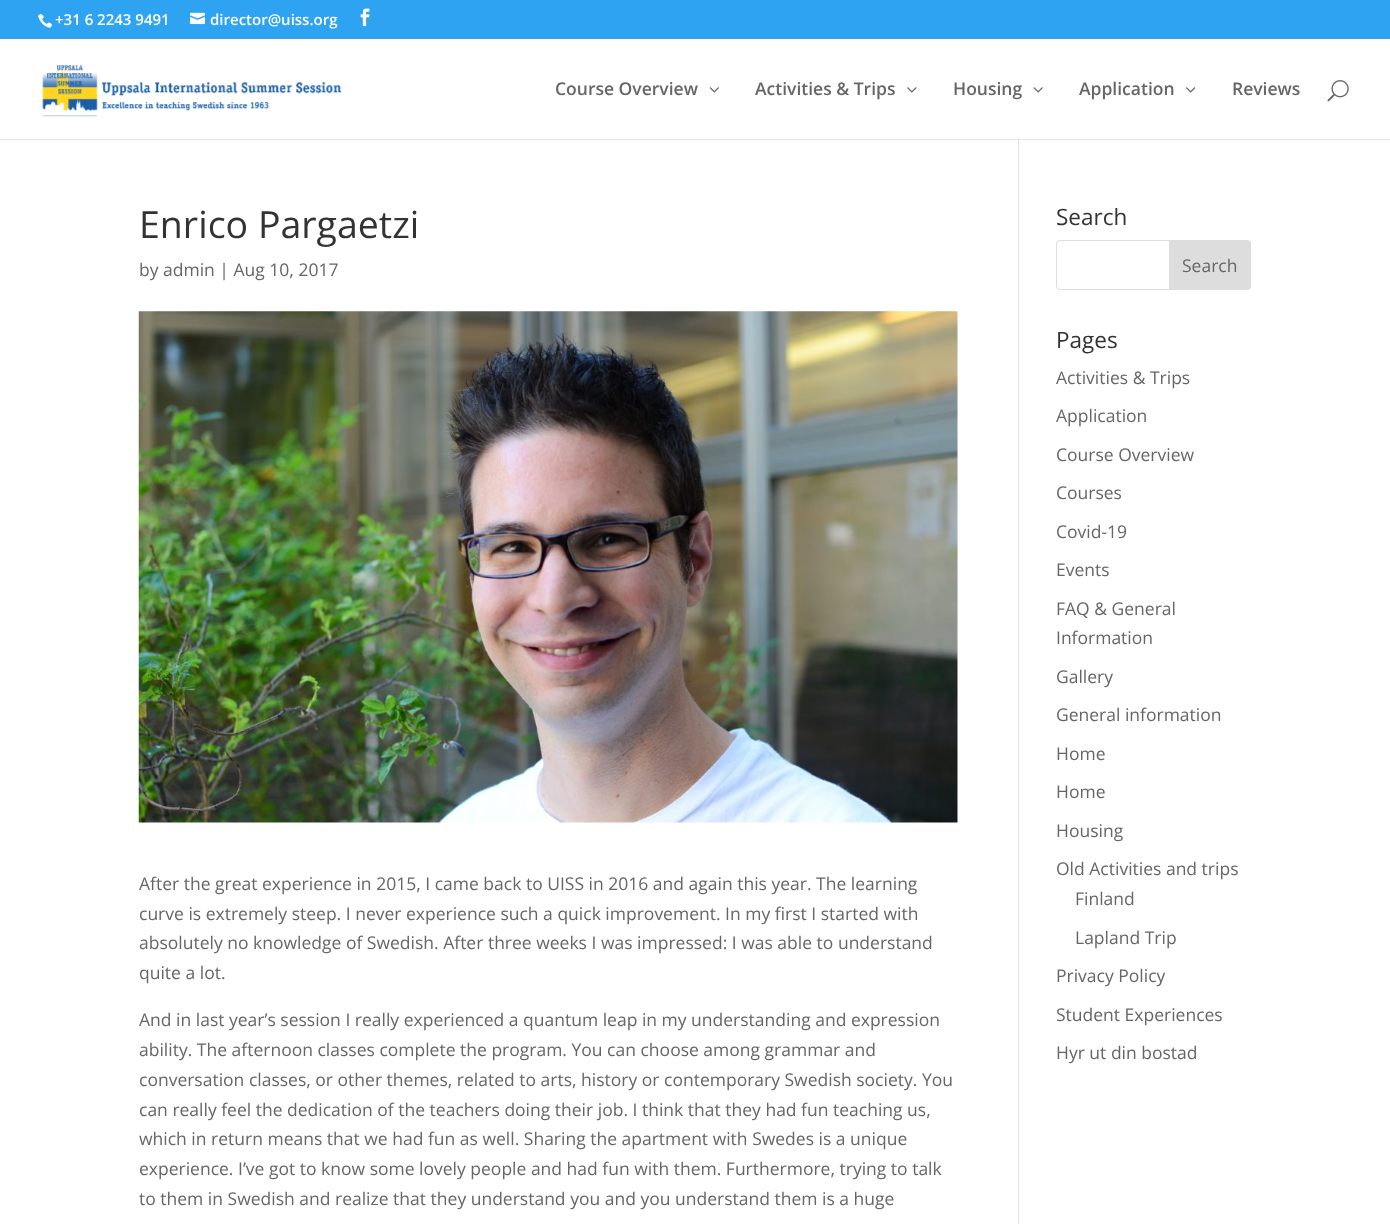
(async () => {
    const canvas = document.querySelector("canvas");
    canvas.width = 1390;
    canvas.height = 1224;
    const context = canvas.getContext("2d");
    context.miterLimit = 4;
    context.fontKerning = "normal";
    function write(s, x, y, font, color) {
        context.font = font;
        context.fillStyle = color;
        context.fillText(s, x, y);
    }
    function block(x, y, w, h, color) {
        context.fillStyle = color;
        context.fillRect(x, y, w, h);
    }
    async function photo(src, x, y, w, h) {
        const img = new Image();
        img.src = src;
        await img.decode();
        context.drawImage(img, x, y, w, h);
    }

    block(0, 0, 1390, 1224, "rgb(255, 255, 255)");
    block(0, 139, 1390, 1, "rgb(230, 230, 230)");
    block(0, 0, 1390, 39, "rgb(46, 163, 242)");
    await photo("media/1.png", 38, 14, 14, 14);
    write("+31 6 2243 9491", 55, 25, "600 15px Open Sans", "rgb(255, 255, 255)");
    await photo("media/2.png", 190, 12, 15, 13);
    write("director@uiss.org", 210, 25, "600 15px Open Sans", "rgb(255, 255, 255)");
    await photo("media/3.png", 360, 8, 10, 19);
    block(1018, 133, 1, 1091, "rgb(226, 226, 226)");
    block(1018, 133, 1, 6, "rgb(255, 255, 255)");
    await photo("media/4.png", 42, 65, 300, 52);
    write("Course Overview", 555, 95, "600 17.5px Open Sans", "rgb(102, 102, 102)");
    await photo("media/5.png", 709, 87, 10, 6);
    write("Activities & Trips", 755, 95, "600 17.5px Open Sans", "rgb(102, 102, 102)");
    await photo("media/6.png", 907, 87, 10, 6);
    write("Housing", 953, 95, "600 17.5px Open Sans", "rgb(102, 102, 102)");
    await photo("media/7.png", 1033, 87, 10, 6);
    write("Application", 1079, 95, "600 17.5px Open Sans", "rgb(102, 102, 102)");
    await photo("media/8.png", 1186, 87, 10, 6);
    write("Reviews", 1232, 95, "600 17.5px Open Sans", "rgb(102, 102, 102)");
    await photo("media/9.png", 1327, 80, 22, 22);
    block(1018, 139, 1, 1, "rgb(203, 203, 203)");
    write("Enrico Pargaetzi", 139, 238, "37.5px Open Sans", "rgb(51, 51, 51)");
    write("by admin | Aug 10, 2017", 139, 276, "17.5px Open Sans", "rgb(102, 102, 102)");
    await photo("media/10.png", 138, 311, 820, 512);
    write("After the great experience in 2015, I came back to UISS in 2016 and again this year. The learning", 139, 890, "17.5px Open Sans", "rgb(102, 102, 102)");
    write("curve is extremely steep. I never experience such a quick improvement. In my first I started with", 139, 920, "17.5px Open Sans", "rgb(102, 102, 102)");
    write("absolutely no knowledge of Swedish. After three weeks I was impressed: I was able to understand", 139, 949, "17.5px Open Sans", "rgb(102, 102, 102)");
    write("quite a lot.", 139, 979, "17.5px Open Sans", "rgb(102, 102, 102)");
    write("And in last year’s session I really experienced a quantum leap in my understanding and expression", 139, 1026, "17.5px Open Sans", "rgb(102, 102, 102)");
    write("ability. The afternoon classes complete the program. You can choose among grammar and", 139, 1056, "17.5px Open Sans", "rgb(102, 102, 102)");
    write("conversation classes, or other themes, related to arts, history or contemporary Swedish society. You", 139, 1086, "17.5px Open Sans", "rgb(102, 102, 102)");
    write("can really feel the dedication of the teachers doing their job. I think that they had fun teaching us,", 139, 1116, "17.5px Open Sans", "rgb(102, 102, 102)");
    write("which in return means that we had fun as well. Sharing the apartment with Swedes is a unique", 139, 1145, "17.5px Open Sans", "rgb(102, 102, 102)");
    write("experience. I’ve got to know some lovely people and had fun with them. Furthermore, trying to talk", 139, 1175, "17.5px Open Sans", "rgb(102, 102, 102)");
    write("to them in Swedish and realize that they understand you and you understand them is a huge", 139, 1205, "17.5px Open Sans", "rgb(102, 102, 102)");
    write("Search", 1056, 225, "22.5px Open Sans", "rgb(51, 51, 51)");
    context.beginPath();
    context.roundRect(1056.5, 240.5, 194, 49, 3.5);
    context.strokeStyle = "rgb(221, 221, 221)";
    context.stroke();
    context.fillStyle = "rgb(221, 221, 221)";
    context.beginPath();
    context.roundRect(1169.5, 240.5, 81, 49, [0, 3.5, 3.5, 0]);
    context.fill();
    context.stroke();
    write("Search", 1182, 272, "17.5px Open Sans", "rgb(102, 102, 102)");
    write("Pages", 1056, 348, "22.5px Open Sans", "rgb(51, 51, 51)");
    write("Activities & Trips", 1056, 384, "17.5px Open Sans", "rgb(102, 102, 102)");
    write("Application", 1056, 422, "17.5px Open Sans", "rgb(102, 102, 102)");
    write("Course Overview", 1056, 461, "17.5px Open Sans", "rgb(102, 102, 102)");
    write("Courses", 1056, 499, "17.5px Open Sans", "rgb(102, 102, 102)");
    write("Covid-19", 1056, 538, "17.5px Open Sans", "rgb(102, 102, 102)");
    write("Events", 1056, 576, "17.5px Open Sans", "rgb(102, 102, 102)");
    write("FAQ & General", 1056, 615, "17.5px Open Sans", "rgb(102, 102, 102)");
    write("Information", 1056, 644, "17.5px Open Sans", "rgb(102, 102, 102)");
    write("Gallery", 1056, 683, "17.5px Open Sans", "rgb(102, 102, 102)");
    write("General information", 1056, 721, "17.5px Open Sans", "rgb(102, 102, 102)");
    write("Home", 1056, 760, "17.5px Open Sans", "rgb(102, 102, 102)");
    write("Home", 1056, 798, "17.5px Open Sans", "rgb(102, 102, 102)");
    write("Housing", 1056, 837, "17.5px Open Sans", "rgb(102, 102, 102)");
    write("Old Activities and trips", 1056, 875, "17.5px Open Sans", "rgb(102, 102, 102)");
    write("Finland", 1075, 905, "17.5px Open Sans", "rgb(102, 102, 102)");
    write("Lapland Trip", 1075, 944, "17.5px Open Sans", "rgb(102, 102, 102)");
    write("Privacy Policy", 1056, 982, "17.5px Open Sans", "rgb(102, 102, 102)");
    write("Student Experiences", 1056, 1021, "17.5px Open Sans", "rgb(102, 102, 102)");
    write("Hyr ut din bostad", 1056, 1059, "17.5px Open Sans", "rgb(102, 102, 102)");
})();
